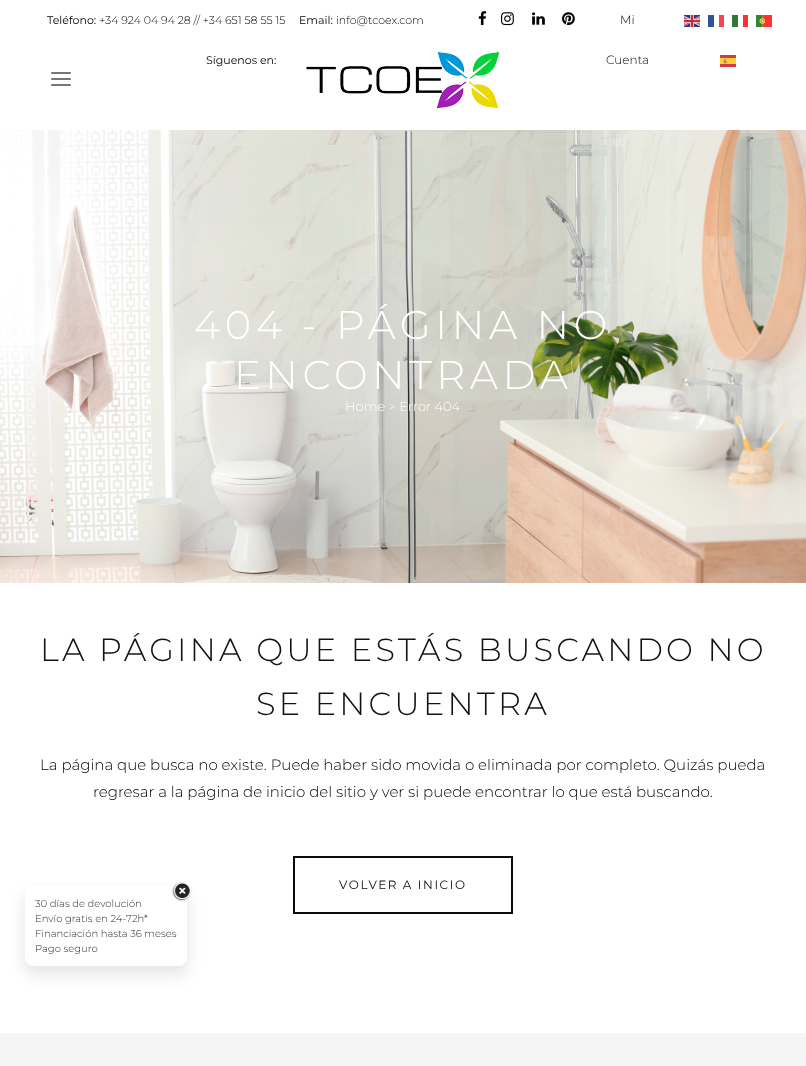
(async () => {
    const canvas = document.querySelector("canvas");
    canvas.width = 806;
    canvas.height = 1066;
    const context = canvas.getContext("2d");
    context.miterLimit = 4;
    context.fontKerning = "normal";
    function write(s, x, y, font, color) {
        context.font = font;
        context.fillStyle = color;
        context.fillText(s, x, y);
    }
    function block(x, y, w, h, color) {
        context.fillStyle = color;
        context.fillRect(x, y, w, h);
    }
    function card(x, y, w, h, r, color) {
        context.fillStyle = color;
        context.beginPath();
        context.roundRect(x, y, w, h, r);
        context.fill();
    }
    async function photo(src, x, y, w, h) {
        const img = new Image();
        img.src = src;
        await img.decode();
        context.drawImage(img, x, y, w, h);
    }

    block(0, 0, 806, 1066, "rgb(255, 255, 255)");
    write("Teléfono:", 47, 24, "11px Montserrat", "rgb(0, 0, 0)");
    write("+34 924 04 94 28 // +34 651 58 55 15", 99, 24, "300 11px Montserrat", "rgb(0, 0, 0)");
    write("Email:", 299, 24, "11px Montserrat", "rgb(0, 0, 0)");
    write("info@tcoex.com", 336, 24, "300 11px Montserrat", "rgb(0, 0, 0)");
    write("Síguenos en:", 206, 64, "11px Montserrat", "rgb(0, 0, 0)");
    await photo("media/1.png", 478, 11, 9, 15);
    await photo("media/2.png", 501, 12, 13, 14);
    await photo("media/3.png", 532, 12, 13, 13);
    await photo("media/4.png", 562, 12, 13, 14);
    write("Mi", 620, 24, "300 12px Montserrat", "rgb(0, 0, 0)");
    write("Cuenta", 606, 64, "300 12px Montserrat", "rgb(0, 0, 0)");
    await photo("media/5.png", 684, 15, 16, 12);
    block(708, 15, 6, 12, "rgb(51, 81, 153)");
    block(719, 15, 5, 12, "rgb(245, 70, 89)");
    block(732, 15, 6, 12, "rgb(51, 121, 51)");
    block(743, 15, 5, 12, "rgb(253, 51, 51)");
    await photo("media/6.png", 756, 15, 16, 12);
    await photo("media/7.png", 720, 55, 16, 12);
    await photo("media/8.png", 51, 72, 20, 14);
    await photo("media/9.png", 306, 51, 194, 58);
    await photo("media/10.png", 0, 130, 806, 453);
    context.letterSpacing = "4.6px";
    write("404 - PÁGINA NO", 194, 339, "300 40px Montserrat", "rgb(255, 255, 255)");
    write("ENCONTRADA", 234, 389, "300 40px Montserrat", "rgb(255, 255, 255)");
    context.letterSpacing = "0px";
    write("Home > Error 404", 345, 411, "300 13px Montserrat", "rgb(255, 255, 255)");
    context.letterSpacing = "3.2px";
    write("LA PÁGINA QUE ESTÁS BUSCANDO NO", 40, 661, "300 32px Montserrat", "rgb(19, 18, 18)");
    write("SE ENCUENTRA", 256, 715, "300 32px Montserrat", "rgb(19, 18, 18)");
    context.letterSpacing = "0px";
    write("La página que busca no existe. Puede haber sido movida o eliminada por completo. Quizás pueda", 40, 770, "300 15px Montserrat", "rgb(0, 0, 0)");
    write("regresar a la página de inicio del sitio y ver si puede encontrar lo que está buscando.", 93, 797, "300 15px Montserrat", "rgb(0, 0, 0)");
    context.strokeStyle = "rgb(11, 11, 11)";
    context.lineWidth = 2;
    context.strokeRect(294, 857, 218, 56);
    context.letterSpacing = "1.6px";
    write("VOLVER A INICIO", 339, 889, "12px Montserrat", "rgb(11, 11, 11)");
    block(0, 1033, 806, 33, "rgb(245, 245, 245)");
    context.fillStyle = "rgba(0, 0, 0, 0.11)";
    context.filter = "blur(8px)";
    context.beginPath();
    context.roundRect(25, 894, 162, 80, 8);
    context.fill();
    context.filter = "none";
    card(25, 886, 162, 80, 8, "rgb(255, 255, 255)");
    await photo("media/11.png", 172, 881, 20, 20);
    context.letterSpacing = "0px";
    write("30 días de devolución", 35, 907, "300 10px Montserrat", "rgb(48, 48, 48)");
    write("Envío gratis en 24-72h*", 35, 922, "300 10px Montserrat", "rgb(48, 48, 48)");
    write("Financiación hasta 36 meses", 35, 937, "300 10px Montserrat", "rgb(48, 48, 48)");
    write("Pago seguro", 35, 952, "300 10px Montserrat", "rgb(48, 48, 48)");
})();
